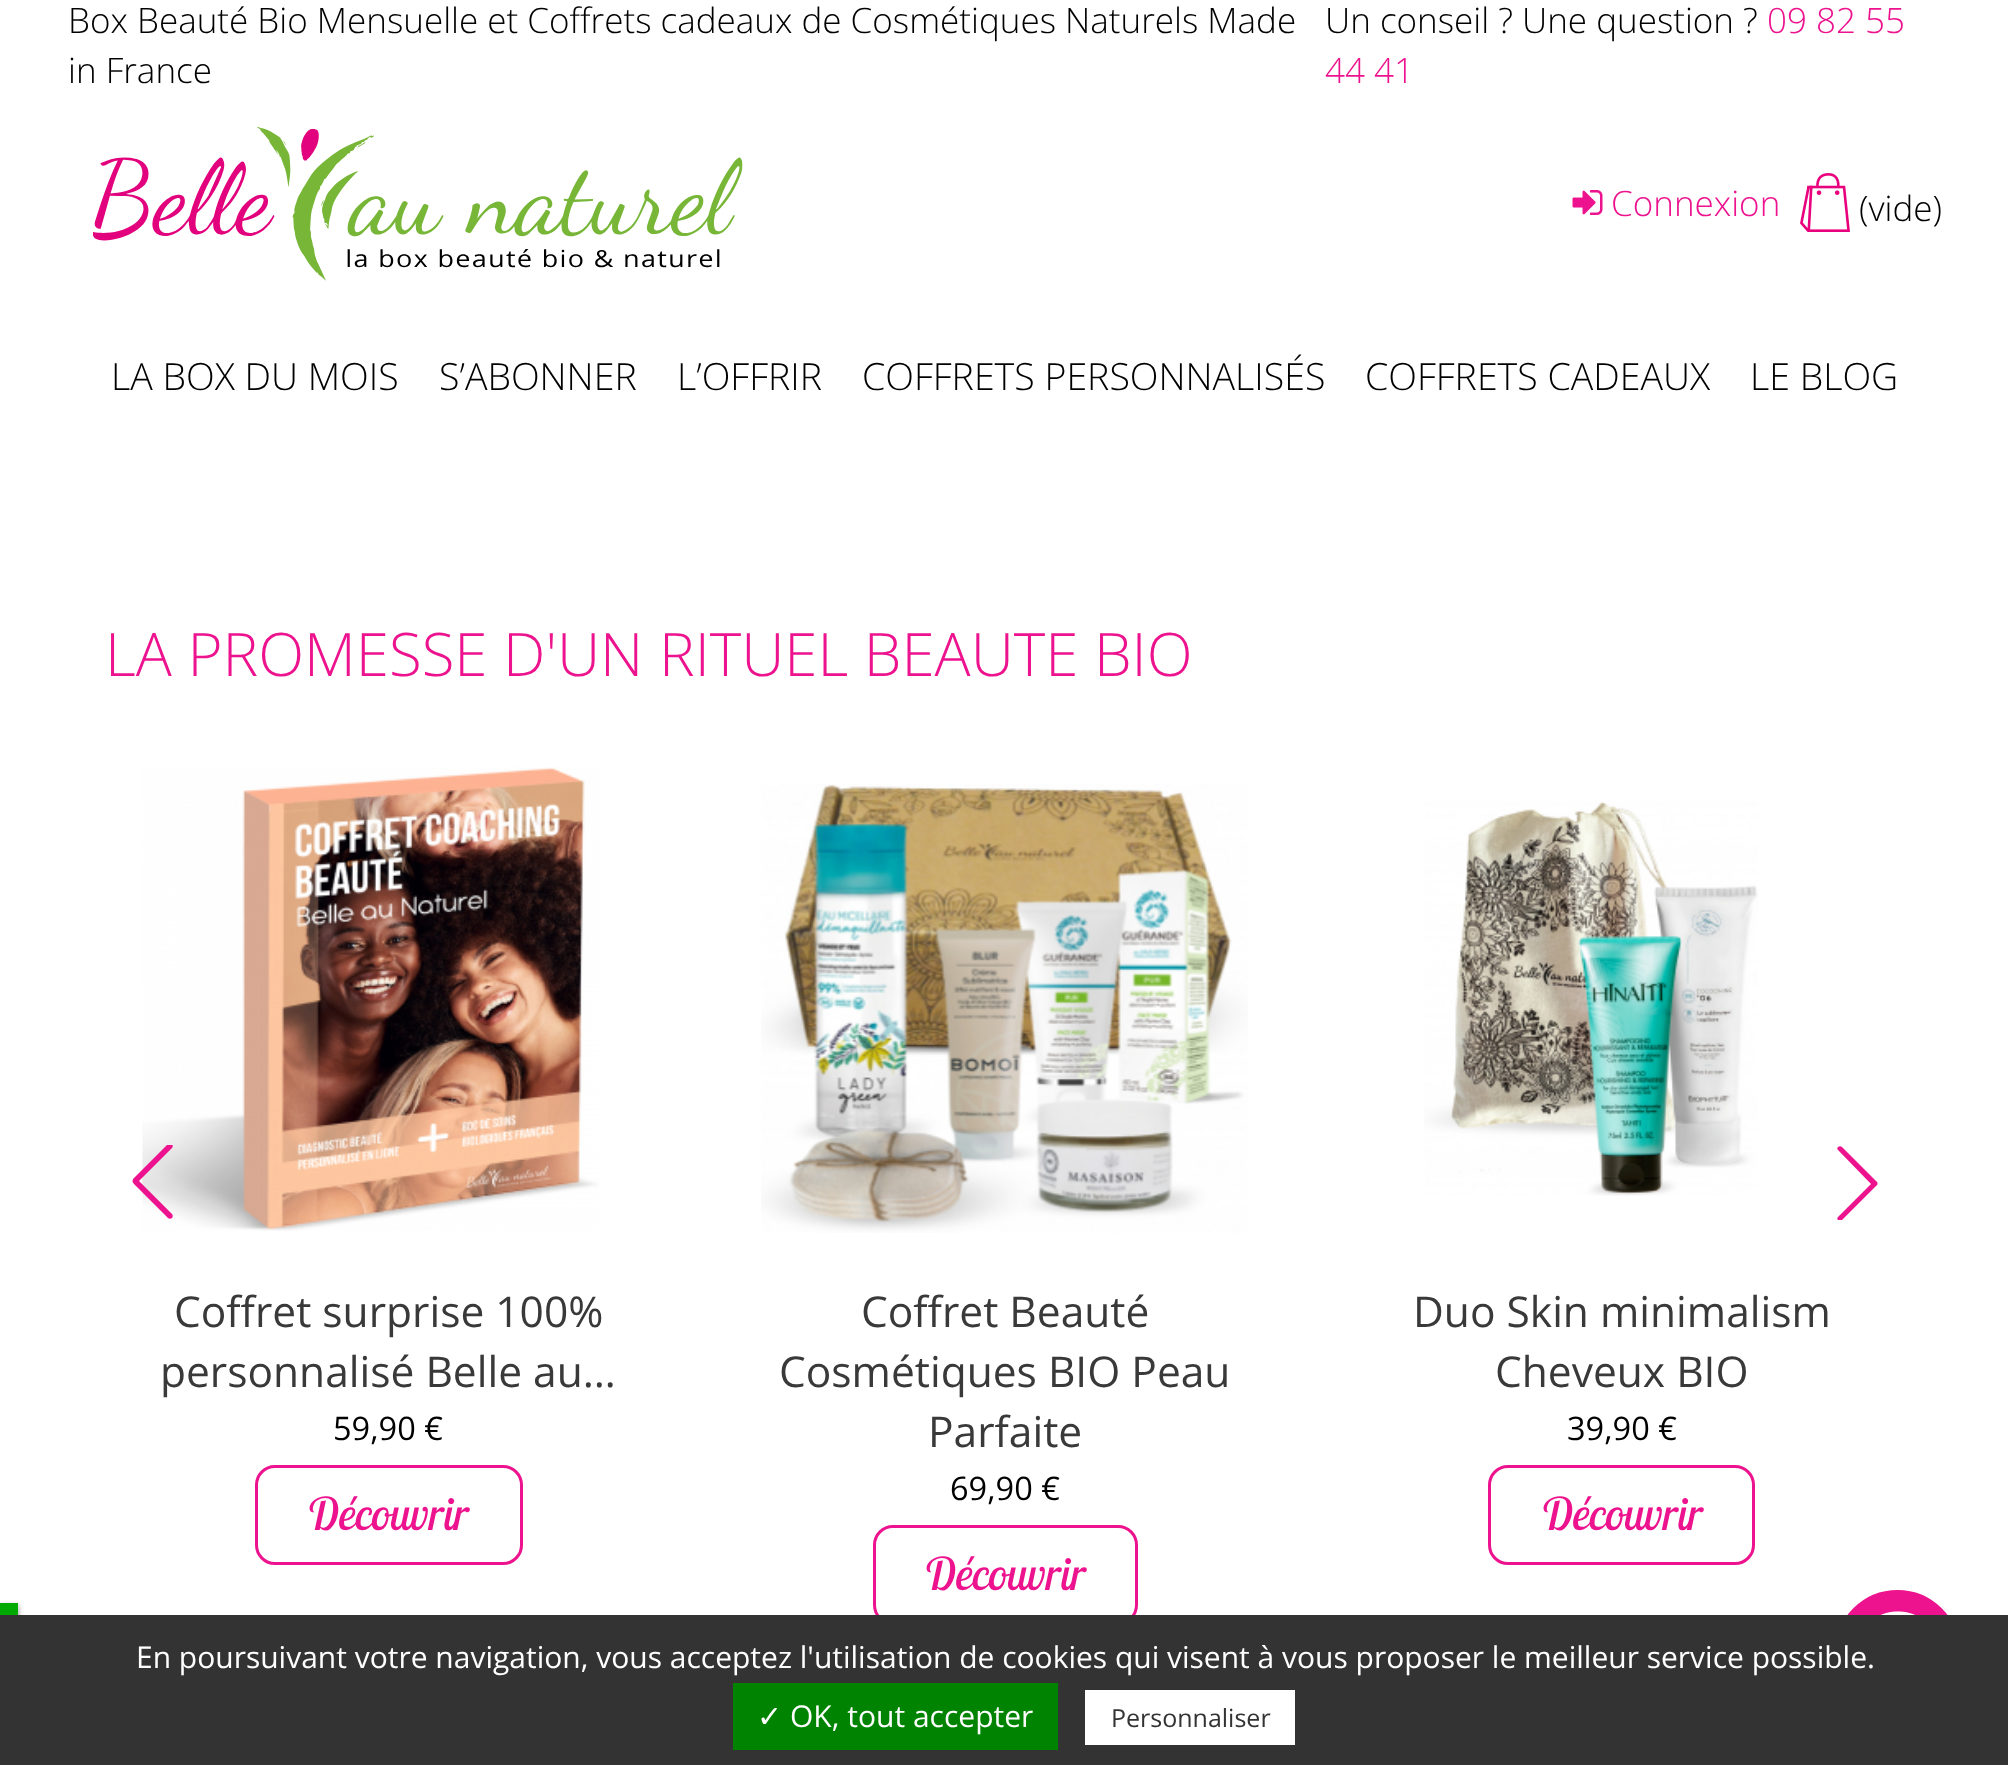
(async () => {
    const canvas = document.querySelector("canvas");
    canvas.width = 2008;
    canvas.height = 1765;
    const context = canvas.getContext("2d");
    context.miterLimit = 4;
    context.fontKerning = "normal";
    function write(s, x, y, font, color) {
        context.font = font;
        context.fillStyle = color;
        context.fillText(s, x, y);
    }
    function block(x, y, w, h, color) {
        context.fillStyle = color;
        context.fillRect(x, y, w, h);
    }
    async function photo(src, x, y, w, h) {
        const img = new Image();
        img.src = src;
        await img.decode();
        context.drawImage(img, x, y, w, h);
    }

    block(0, 0, 2008, 1765, "rgb(255, 255, 255)");
    write("Box Beauté Bio Mensuelle et Coffrets cadeaux de Cosmétiques Naturels Made", 68, 33, "300 35px Open Sans", "rgb(0, 0, 0)");
    write("in France", 68, 83, "300 35px Open Sans", "rgb(0, 0, 0)");
    write("Un conseil ? Une question ?", 1325, 33, "300 35px Open Sans", "rgb(0, 0, 0)");
    write("09 82 55", 1767, 33, "300 35px Open Sans", "rgb(237, 19, 142)");
    write("44 41", 1325, 83, "300 35px Open Sans", "rgb(237, 19, 142)");
    await photo("media/1.png", 93, 126, 650, 155);
    await photo("media/2.png", 1572, 190, 31, 25);
    write("Connexion", 1611, 216, "300 35px Open Sans", "rgb(237, 19, 142)");
    await photo("media/3.png", 1800, 173, 50, 59);
    write("(vide)", 1859, 221, "300 35px Open Sans", "rgb(0, 0, 0)");
    write("LA BOX DU MOIS", 111, 390, "300 37.5px Open Sans", "rgb(0, 0, 0)");
    write("S’ABONNER", 439, 390, "300 37.5px Open Sans", "rgb(0, 0, 0)");
    write("L’OFFRIR", 677, 390, "300 37.5px Open Sans", "rgb(0, 0, 0)");
    write("COFFRETS PERSONNALISÉS", 862, 390, "300 37.5px Open Sans", "rgb(0, 0, 0)");
    write("COFFRETS CADEAUX", 1365, 390, "300 37.5px Open Sans", "rgb(0, 0, 0)");
    write("LE BLOG", 1750, 390, "300 37.5px Open Sans", "rgb(0, 0, 0)");
    write("LA PROMESSE D'UN RITUEL BEAUTE BIO", 105, 676, "300 60px Open Sans", "rgb(237, 19, 142)");
    await photo("media/4.png", 142, 767, 457, 464);
    context.save();
    context.beginPath();
    context.rect(115, 1145, 75, 75);
    context.clip();
    context.beginPath();
    context.moveTo(172, 1144);
    context.bezierCurveTo(173, 1145, 173, 1147, 172, 1148);
    context.lineTo(139, 1181);
    context.lineTo(172, 1214);
    context.bezierCurveTo(173, 1215, 173, 1217, 172, 1218);
    context.bezierCurveTo(171, 1219, 169, 1219, 168, 1218);
    context.lineTo(134, 1184);
    context.bezierCurveTo(132, 1182, 132, 1180, 134, 1178);
    context.lineTo(168, 1144);
    context.bezierCurveTo(169, 1143, 171, 1143, 172, 1144);
    context.closePath();
    context.fill();
    context.restore();
    context.save();
    context.beginPath();
    context.rect(1820, 1145, 75, 75);
    context.clip();
    context.beginPath();
    context.moveTo(1838, 1220);
    context.bezierCurveTo(1837, 1219, 1837, 1218, 1838, 1217);
    context.lineTo(1871, 1184);
    context.lineTo(1838, 1150);
    context.bezierCurveTo(1837, 1149, 1837, 1148, 1838, 1147);
    context.bezierCurveTo(1839, 1146, 1841, 1146, 1842, 1147);
    context.lineTo(1876, 1181);
    context.bezierCurveTo(1878, 1182, 1878, 1185, 1876, 1186);
    context.lineTo(1842, 1220);
    context.bezierCurveTo(1841, 1221, 1839, 1221, 1838, 1220);
    context.closePath();
    context.fill();
    context.restore();
    write("Coffret surprise 100%", 174, 1327, "42.5px Open Sans", "rgb(58, 57, 57)");
    write("personnalisé Belle au…", 160, 1387, "42.5px Open Sans", "rgb(58, 57, 57)");
    write("59,90 €", 333, 1440, "32.5px Open Sans", "rgb(0, 0, 0)");
    context.beginPath();
    context.roundRect(256.5, 1466.5, 265, 97, 18.5);
    context.strokeStyle = "rgb(237, 19, 142)";
    context.lineWidth = 3;
    context.stroke();
    write("Découvrir", 307, 1530, "italic 45px Lobster Two", "rgb(237, 19, 142)");
    await photo("media/5.png", 761, 784, 487, 449);
    write("Coffret Beauté", 861, 1327, "42.5px Open Sans", "rgb(58, 57, 57)");
    write("Cosmétiques BIO Peau", 779, 1387, "42.5px Open Sans", "rgb(58, 57, 57)");
    write("Parfaite", 928, 1447, "42.5px Open Sans", "rgb(58, 57, 57)");
    write("69,90 €", 950, 1500, "32.5px Open Sans", "rgb(0, 0, 0)");
    context.beginPath();
    context.roundRect(874.5, 1526.5, 262, 97, 18.5);
    context.stroke();
    write("Découvrir", 924, 1590, "italic 45px Lobster Two", "rgb(237, 19, 142)");
    await photo("media/6.png", 1424, 801, 334, 395);
    write("Duo Skin minimalism", 1413, 1327, "42.5px Open Sans", "rgb(58, 57, 57)");
    write("Cheveux BIO", 1495, 1387, "42.5px Open Sans", "rgb(58, 57, 57)");
    write("39,90 €", 1567, 1440, "32.5px Open Sans", "rgb(0, 0, 0)");
    context.beginPath();
    context.roundRect(1489.5, 1466.5, 264, 97, 18.5);
    context.stroke();
    write("Découvrir", 1541, 1530, "italic 45px Lobster Two", "rgb(237, 19, 142)");
    context.fillStyle = "rgb(85, 85, 85)";
    context.filter = "blur(2.5px)";
    context.beginPath();
    context.rect(0, 1605, 18, 13);
    context.fill();
    context.filter = "none";
    context.fillStyle = "rgb(255, 255, 255)";
    context.filter = "blur(2.5px)";
    context.beginPath();
    context.rect(0, 1603, 18, 12);
    context.fill();
    context.filter = "none";
    block(0, 1603, 18, 12, "rgb(0, 170, 0)");
    context.fillStyle = "rgb(237, 19, 142)";
    context.beginPath();
    context.arc(1897.5, 1652.5, 61, 0, Math.PI * 2);
    context.fill();
    context.stroke();
    block(0, 1615, 2008, 150, "rgb(51, 51, 51)");
    write("En poursuivant votre navigation, vous acceptez l'utilisation de cookies qui visent à vous proposer le meilleur service possible.", 136, 1668, "30px Open Sans", "rgb(255, 255, 255)");
    block(733, 1683, 325, 67, "rgb(0, 131, 0)");
    write("✓", 757, 1727, "30px DejaVu Sans", "rgb(255, 255, 255)");
    write("OK, tout accepter", 790, 1727, "30px Open Sans", "rgb(255, 255, 255)");
    block(1085, 1690, 210, 55, "rgb(255, 255, 255)");
    write("Personnaliser", 1111, 1727, "25px Open Sans", "rgb(51, 51, 51)");
    await photo("media/7.png", 1880, 1611, 35, 4);
})();
